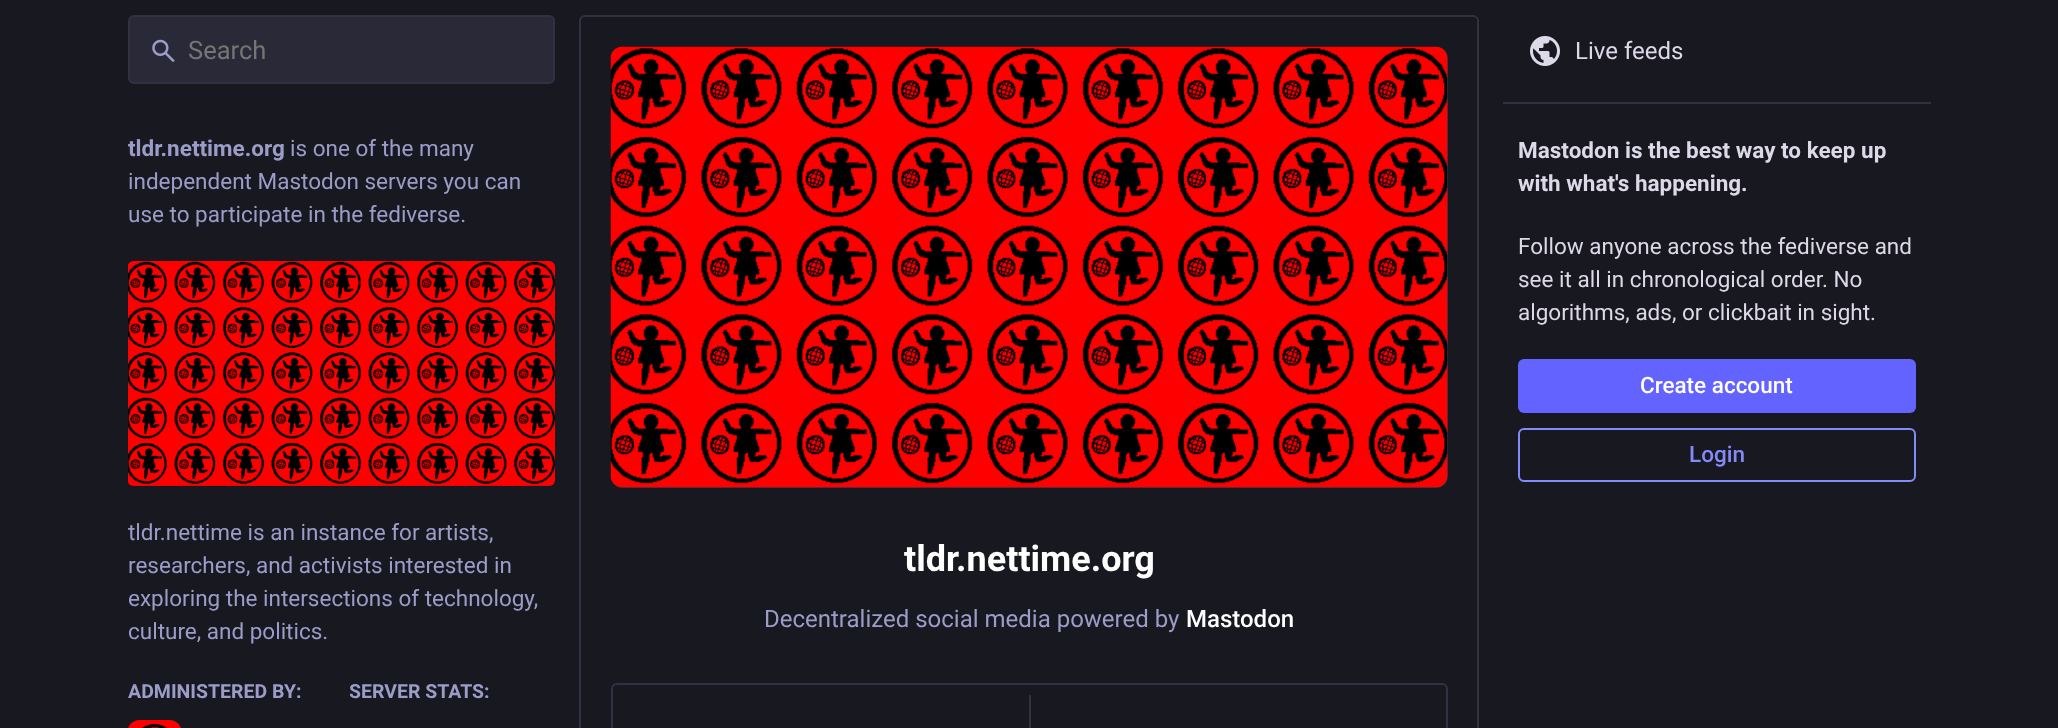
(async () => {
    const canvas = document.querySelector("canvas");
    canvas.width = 2058;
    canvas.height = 728;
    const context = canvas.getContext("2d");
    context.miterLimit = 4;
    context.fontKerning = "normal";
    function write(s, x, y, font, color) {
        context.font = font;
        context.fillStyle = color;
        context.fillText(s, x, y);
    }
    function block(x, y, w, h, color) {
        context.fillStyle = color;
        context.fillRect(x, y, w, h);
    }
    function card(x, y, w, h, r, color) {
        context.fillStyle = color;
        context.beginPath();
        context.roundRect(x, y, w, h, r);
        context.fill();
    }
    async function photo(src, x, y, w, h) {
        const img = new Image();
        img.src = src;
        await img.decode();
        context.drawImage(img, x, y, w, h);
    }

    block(0, 0, 2058, 728, "rgb(24, 24, 33)");
    context.fillStyle = "rgb(41, 41, 56)";
    context.beginPath();
    context.roundRect(129, 16, 425, 67, 5);
    context.fill();
    context.strokeStyle = "rgb(49, 49, 68)";
    context.lineWidth = 2;
    context.stroke();
    await photo("media/1.png", 152, 39, 23, 24);
    write("Search", 188, 59, "25.5px Roboto", "rgb(117, 117, 117)");
    context.save();
    context.beginPath();
    context.rect(128, 15, 427, 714);
    context.clip();
    write("tldr.nettime.org", 128, 156, "bold 22.5px Roboto", "rgb(156, 156, 201)");
    context.restore();
    write("is one of the many", 290, 156, "22.5px Roboto", "rgb(156, 156, 201)");
    write("independent Mastodon servers you can", 128, 189, "22.5px Roboto", "rgb(156, 156, 201)");
    write("use to participate in the fediverse.", 128, 222, "22.5px Roboto", "rgb(156, 156, 201)");
    card(128, 261, 427, 225, 6, "rgb(41, 41, 56)");
    await photo("media/2.png", 128, 261, 427, 225);
    write("tldr.nettime is an instance for artists,", 128, 540, "22.5px Roboto", "rgb(156, 156, 201)");
    write("researchers, and activists interested in", 128, 573, "22.5px Roboto", "rgb(156, 156, 201)");
    write("exploring the intersections of technology,", 128, 606, "22.5px Roboto", "rgb(156, 156, 201)");
    write("culture, and politics.", 128, 639, "22.5px Roboto", "rgb(156, 156, 201)");
    write("ADMINISTERED BY:", 128, 698, "bold 19.5px Roboto", "rgb(156, 156, 201)");
    context.fillStyle = "rgb(32, 32, 44)";
    context.beginPath();
    context.moveTo(140, 720);
    context.lineTo(170, 720);
    context.bezierCurveTo(176.5, 720, 182, 725.5, 182, 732);
    context.lineTo(182, 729);
    context.lineTo(128, 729);
    context.lineTo(128, 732);
    context.bezierCurveTo(128, 725.5, 133.5, 720, 140, 720);
    context.closePath();
    context.fill();
    await photo("media/3.png", 128, 720, 54, 8);
    context.save();
    context.beginPath();
    context.rect(350, 678, 205, 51);
    context.clip();
    write("SERVER STATS:", 349, 698, "bold 19.5px Roboto", "rgb(156, 156, 201)");
    context.restore();
    await photo("media/4.png", 1530, 36, 30, 30);
    write("Live feeds", 1575, 59, "24px Roboto", "rgb(221, 217, 232)");
    block(1503, 102, 428, 2, "rgb(49, 49, 68)");
    write("Mastodon is the best way to keep up", 1518, 158, "bold 22.5px Roboto", "rgb(221, 217, 232)");
    write("with what's happening.", 1518, 191, "bold 22.5px Roboto", "rgb(221, 217, 232)");
    write("Follow anyone across the fediverse and", 1518, 254, "22.5px Roboto", "rgb(221, 217, 232)");
    write("see it all in chronological order. No", 1518, 287, "22.5px Roboto", "rgb(221, 217, 232)");
    write("algorithms, ads, or clickbait in sight.", 1518, 320, "22.5px Roboto", "rgb(221, 217, 232)");
    card(1518, 359, 398, 54, 6, "rgb(99, 100, 255)");
    write("Create account", 1640, 393, "500 22.5px Roboto", "rgb(255, 255, 255)");
    context.beginPath();
    context.roundRect(1519, 429, 396, 52, 5);
    context.strokeStyle = "rgb(133, 138, 250)";
    context.stroke();
    write("Login", 1689, 462, "500 22.5px Roboto", "rgb(133, 138, 250)");
    context.beginPath();
    context.roundRect(580, 16, 898, 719, 5);
    context.strokeStyle = "rgb(49, 49, 68)";
    context.stroke();
    card(611, 47, 837, 441, 12, "rgb(49, 49, 68)");
    await photo("media/5.png", 610, 46, 838, 442);
    write("tldr.nettime.org", 904, 571, "bold 36px Roboto", "rgb(255, 255, 255)");
    write("Decentralized social media powered by", 764, 627, "24px Roboto", "rgb(156, 156, 201)");
    write("Mastodon", 1186, 627, "500 24px Roboto", "rgb(255, 255, 255)");
    context.beginPath();
    context.roundRect(612, 684, 835, 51, 5);
    context.stroke();
    block(1029, 695, 2, 33, "rgb(49, 49, 68)");
})();
